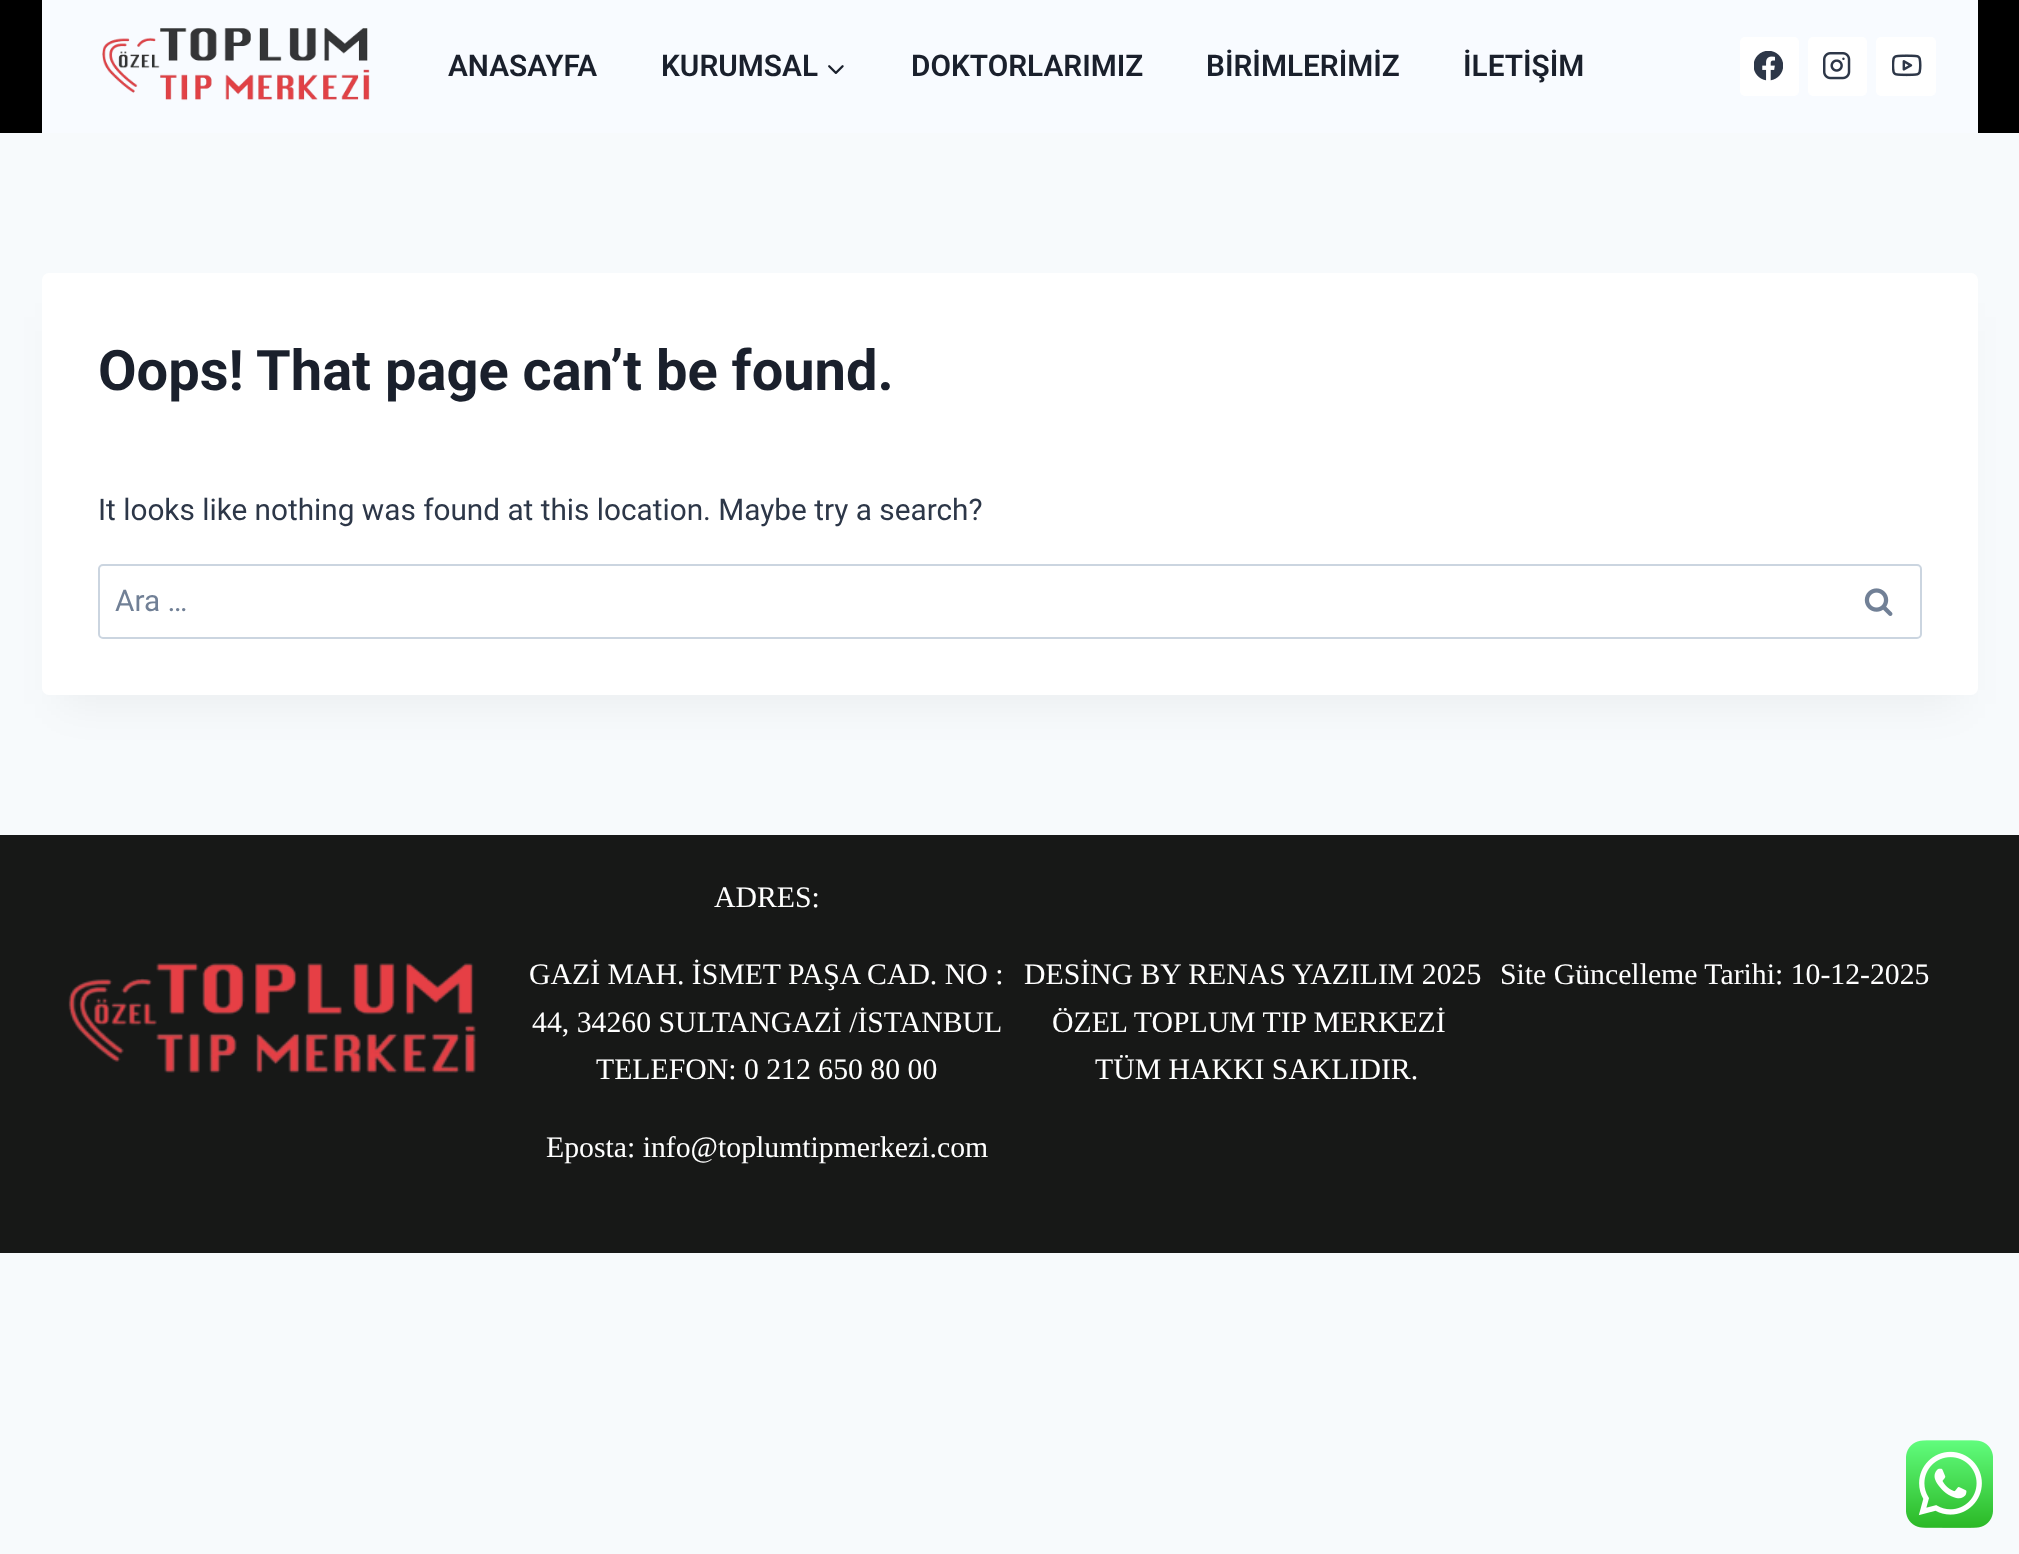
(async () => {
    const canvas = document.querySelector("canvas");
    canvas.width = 2019;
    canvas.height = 1554;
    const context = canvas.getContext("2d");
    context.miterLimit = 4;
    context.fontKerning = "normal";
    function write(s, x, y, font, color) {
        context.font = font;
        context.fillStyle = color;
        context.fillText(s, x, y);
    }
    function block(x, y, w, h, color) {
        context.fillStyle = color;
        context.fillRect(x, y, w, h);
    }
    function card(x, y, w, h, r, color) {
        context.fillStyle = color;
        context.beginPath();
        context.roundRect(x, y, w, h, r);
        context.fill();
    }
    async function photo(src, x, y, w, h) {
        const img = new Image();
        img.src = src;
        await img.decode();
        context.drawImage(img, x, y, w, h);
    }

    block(0, 0, 2019, 1554, "rgb(247, 250, 252)");
    block(0, 0, 2019, 133, "rgb(0, 0, 0)");
    block(42, 0, 1936, 133, "rgb(248, 251, 255)");
    await photo("media/1.png", 102, 28, 268, 73);
    write("ANASAYFA", 448, 76, "600 29.75px Roboto", "rgb(26, 32, 44)");
    write("KURUMSAL", 661, 76, "600 29.75px Roboto", "rgb(26, 32, 44)");
    await photo("media/2.png", 828, 65, 16, 9);
    write("DOKTORLARIMIZ", 911, 76, "600 29.75px Roboto", "rgb(26, 32, 44)");
    write("BİRİMLERİMİZ", 1206, 76, "600 29.75px Roboto", "rgb(26, 32, 44)");
    write("İLETİŞİM", 1463, 76, "600 29.75px Roboto", "rgb(26, 32, 44)");
    card(1740, 37, 59, 59, 5, "rgb(255, 255, 255)");
    await photo("media/3.png", 1754, 51, 29, 30);
    card(1808, 37, 59, 59, 5, "rgb(255, 255, 255)");
    await photo("media/4.png", 1823, 52, 28, 28);
    card(1876, 37, 60, 59, 5, "rgb(255, 255, 255)");
    await photo("media/5.png", 1892, 54, 30, 23);
    context.fillStyle = "rgba(0, 0, 0, 0.05)";
    context.filter = "blur(22px)";
    context.beginPath();
    context.rect(60, 317, 1900, 387);
    context.fill();
    context.filter = "none";
    card(42, 273, 1936, 422, 7, "rgb(255, 255, 255)");
    write("Oops! That page can’t be found.", 98, 390, "bold 56px Roboto", "rgb(26, 32, 44)");
    write("It looks like nothing was found at this location. Maybe try a search?", 98, 520, "29.75px Roboto", "rgb(45, 55, 72)");
    context.beginPath();
    context.roundRect(99, 565, 1822, 73, 4);
    context.strokeStyle = "rgb(203, 213, 224)";
    context.lineWidth = 2;
    context.stroke();
    write("Ara …", 115, 611, "29.75px Roboto", "rgb(113, 128, 150)");
    await photo("media/6.png", 1864, 588, 29, 28);
    block(0, 835, 2019, 418, "rgb(23, 24, 23)");
    await photo("media/7.png", 68, 963, 408, 110);
    write("ADRES:", 714, 907, "29.75px Liberation Serif", "rgb(255, 255, 255)");
    write("GAZİ MAH. İSMET PAŞA CAD. NO :", 529, 984, "29.75px Liberation Serif", "rgb(255, 255, 255)");
    write("44, 34260 SULTANGAZİ /İSTANBUL", 532, 1032, "29.75px Liberation Serif", "rgb(255, 255, 255)");
    write("TELEFON: 0 212 650 80 00", 596, 1079, "29.75px Liberation Serif", "rgb(255, 255, 255)");
    write("Eposta: info@toplumtipmerkezi.com", 546, 1157, "29.75px Liberation Serif", "rgb(255, 255, 255)");
    write("DESİNG BY RENAS YAZILIM 2025", 1024, 984, "29.75px Liberation Serif", "rgb(255, 255, 255)");
    write("ÖZEL TOPLUM TIP MERKEZİ", 1052, 1032, "29.75px Liberation Serif", "rgb(255, 255, 255)");
    write("TÜM HAKKI SAKLIDIR.", 1095, 1079, "29.75px Liberation Serif", "rgb(255, 255, 255)");
    write("Site Güncelleme Tarihi: 10-12-2025", 1500, 984, "29.75px Liberation Serif", "rgb(255, 255, 255)");
    await photo("media/8.png", 1906, 1440, 87, 88);
})();
